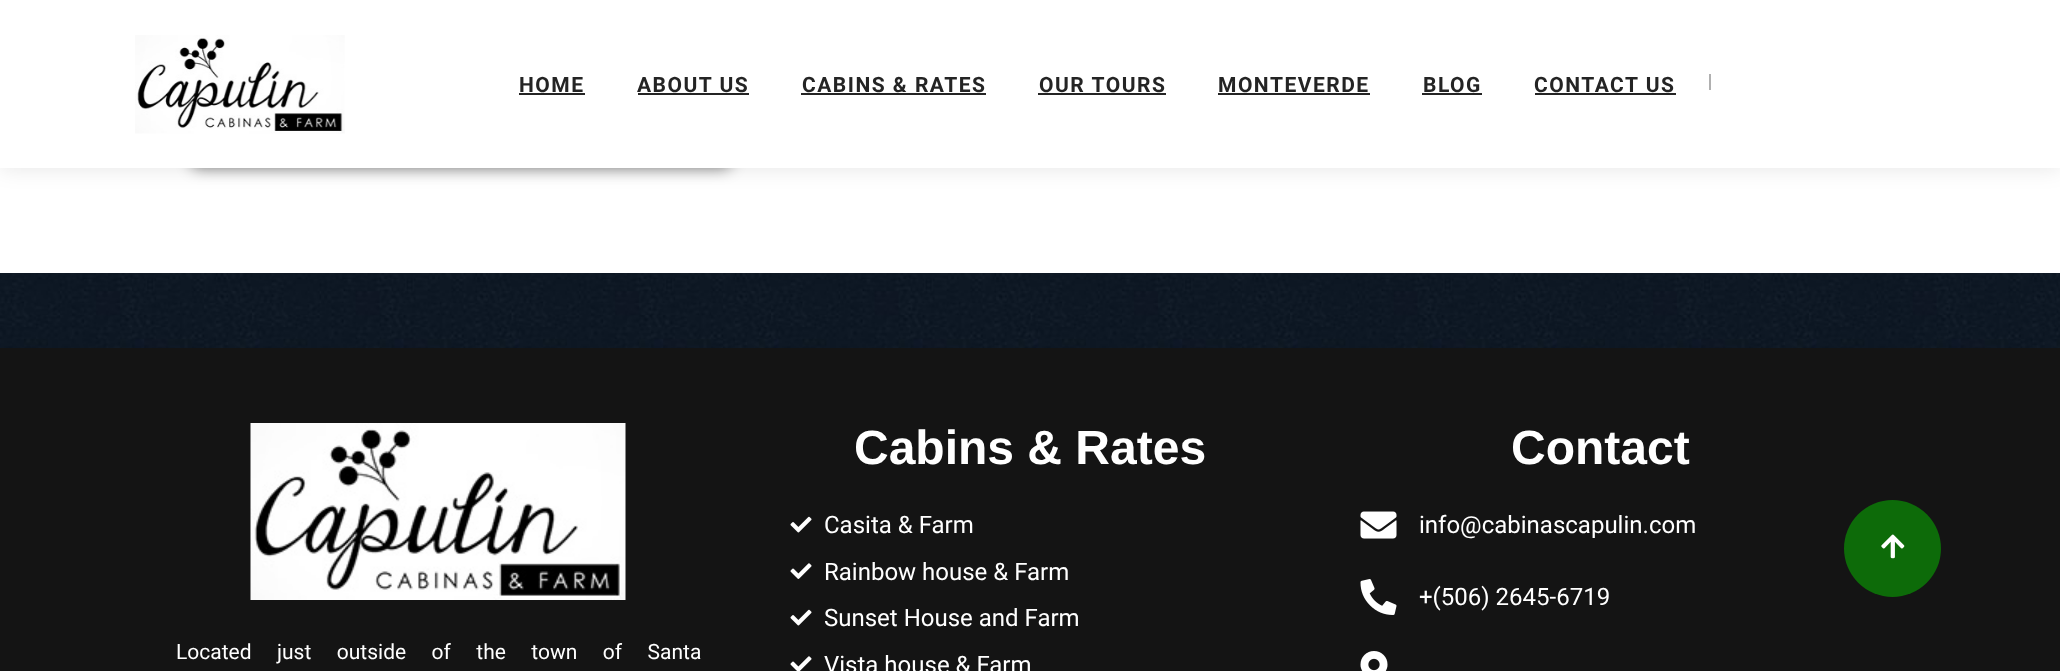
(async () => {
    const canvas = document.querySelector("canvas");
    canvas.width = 2060;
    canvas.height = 671;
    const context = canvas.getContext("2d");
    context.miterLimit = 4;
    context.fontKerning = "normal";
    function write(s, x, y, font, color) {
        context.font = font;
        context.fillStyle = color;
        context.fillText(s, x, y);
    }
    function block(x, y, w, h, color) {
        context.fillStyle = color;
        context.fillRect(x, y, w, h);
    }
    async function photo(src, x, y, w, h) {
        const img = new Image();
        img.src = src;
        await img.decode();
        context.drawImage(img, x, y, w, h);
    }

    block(0, 0, 2060, 671, "rgb(255, 255, 255)");
    await photo("media/1.png", 0, 273, 2060, 75);
    context.fillStyle = "rgba(0, 0, 0, 0.5)";
    context.filter = "blur(7.5px)";
    context.beginPath();
    context.roundRect(191, -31, 540, 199, 8);
    context.fill();
    context.filter = "none";
    context.fillStyle = "rgba(0, 0, 0, 0.1)";
    context.filter = "blur(11px)";
    context.beginPath();
    context.rect(0, 0, 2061, 168);
    context.fill();
    context.filter = "none";
    block(0, 0, 2060, 168, "rgb(255, 255, 255)");
    await photo("media/2.png", 135, 35, 210, 99);
    context.letterSpacing = "1.5px";
    write("HOME", 519, 92, "bold 21px Roboto", "rgb(36, 36, 36)");
    block(519, 93, 66, 2, "rgb(36, 36, 36)");
    write("ABOUT US", 637, 92, "bold 21px Roboto", "rgb(36, 36, 36)");
    block(638, 93, 111, 2, "rgb(36, 36, 36)");
    write("CABINS & RATES", 802, 92, "bold 21px Roboto", "rgb(36, 36, 36)");
    block(801, 93, 185, 2, "rgb(36, 36, 36)");
    write("OUR TOURS", 1039, 92, "bold 21px Roboto", "rgb(36, 36, 36)");
    block(1038, 93, 128, 2, "rgb(36, 36, 36)");
    write("MONTEVERDE", 1218, 92, "bold 21px Roboto", "rgb(36, 36, 36)");
    block(1218, 93, 152, 2, "rgb(36, 36, 36)");
    write("BLOG", 1423, 92, "bold 21px Roboto", "rgb(36, 36, 36)");
    block(1422, 93, 60, 2, "rgb(36, 36, 36)");
    write("CONTACT US", 1534, 92, "bold 21px Roboto", "rgb(36, 36, 36)");
    block(1535, 93, 141, 2, "rgb(36, 36, 36)");
    block(1709, 74, 2, 16, "rgb(176, 176, 176)");
    block(0, 348, 2060, 323, "rgb(20, 20, 20)");
    context.letterSpacing = "0px";
    write("Cabins & Rates", 854, 464, "bold 48px Liberation Sans", "rgb(255, 255, 255)");
    await photo("media/3.png", 790, 516, 22, 17);
    write("Casita & Farm", 824, 533, "24px Roboto", "rgb(255, 255, 255)");
    await photo("media/4.png", 790, 563, 22, 16);
    write("Rainbow house & Farm", 824, 580, "24px Roboto", "rgb(255, 255, 255)");
    await photo("media/3.png", 790, 609, 22, 17);
    write("Sunset House and Farm", 824, 626, "24px Roboto", "rgb(255, 255, 255)");
    await photo("media/5.png", 790, 656, 22, 15);
    write("Vista house & Farm", 824, 673, "24px Roboto", "rgb(255, 255, 255)");
    write("Contact", 1511, 464, "bold 48px Liberation Sans", "rgb(255, 255, 255)");
    await photo("media/6.png", 1360, 511, 37, 28);
    write("info@cabinascapulin.com", 1419, 533, "24px Roboto", "rgb(255, 255, 255)");
    await photo("media/7.png", 1360, 579, 37, 36);
    write("+(506) 2645-6719", 1419, 605, "24px Roboto", "rgb(255, 255, 255)");
    await photo("media/8.png", 1360, 651, 28, 20);
    await photo("media/9.png", 250, 423, 376, 177);
    context.wordSpacing = "20.25px";
    write("Located just outside of the town of Santa", 176, 659, "21px Roboto", "rgb(255, 255, 255)");
    context.fillStyle = "rgb(13, 107, 9)";
    context.beginPath();
    context.arc(1892.5, 548.5, 48.5, 0, Math.PI * 2);
    context.fill();
    await photo("media/10.png", 1881, 534, 24, 25);
})();
